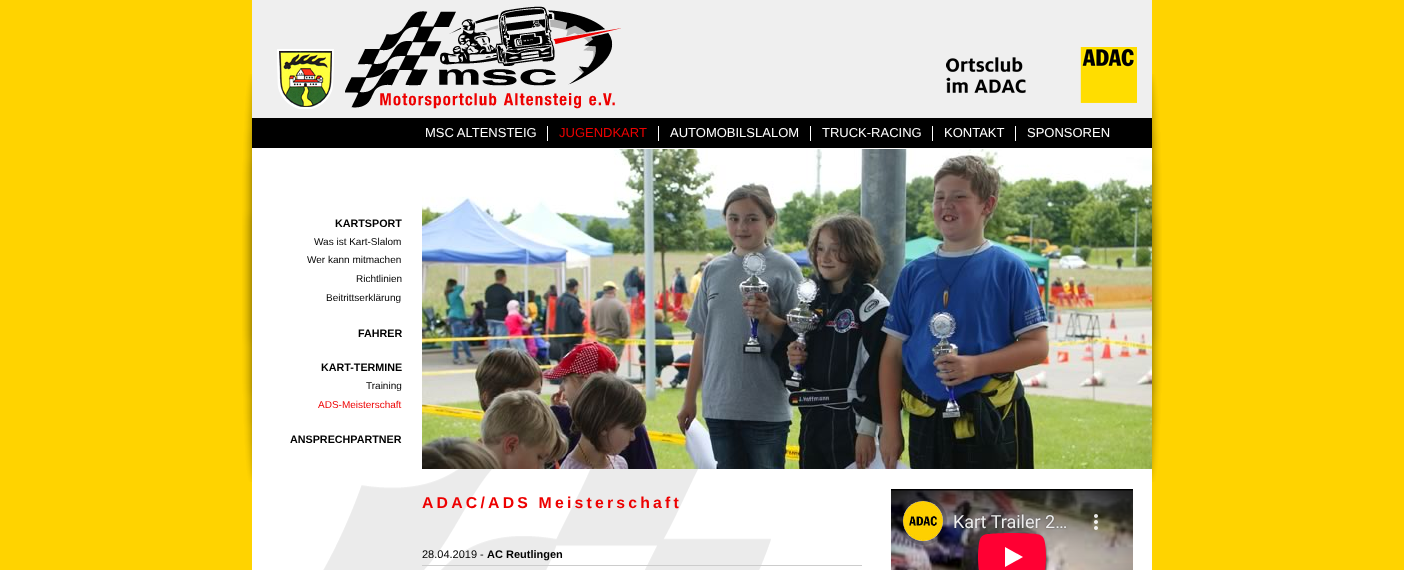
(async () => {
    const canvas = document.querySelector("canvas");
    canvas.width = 1404;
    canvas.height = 570;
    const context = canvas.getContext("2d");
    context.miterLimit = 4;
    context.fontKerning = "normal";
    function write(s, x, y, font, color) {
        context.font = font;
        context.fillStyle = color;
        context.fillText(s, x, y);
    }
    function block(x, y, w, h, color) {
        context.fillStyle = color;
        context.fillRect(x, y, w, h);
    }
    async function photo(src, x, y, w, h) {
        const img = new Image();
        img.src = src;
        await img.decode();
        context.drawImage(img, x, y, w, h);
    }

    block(0, 0, 1404, 570, "rgb(255, 211, 0)");
    await photo("media/1.png", 242, 74, 920, 408);
    block(252, 0, 900, 118, "rgb(239, 239, 239)");
    await photo("media/2.png", 277, 49, 57, 60);
    await photo("media/3.png", 345, 6, 276, 103);
    await photo("media/4.png", 946, 47, 191, 56);
    block(252, 148, 900, 422, "rgb(255, 255, 255)");
    await photo("media/5.png", 323, 469, 448, 101);
    block(252, 118, 900, 30, "rgb(0, 0, 0)");
    block(547, 126, 1, 15, "rgb(255, 255, 255)");
    write("MSC ALTENSTEIG", 425, 137, "13px Liberation Sans", "rgb(255, 255, 255)");
    block(658, 126, 1, 15, "rgb(255, 255, 255)");
    write("JUGENDKART", 559, 137, "13px Liberation Sans", "rgb(237, 0, 0)");
    block(810, 126, 1, 15, "rgb(255, 255, 255)");
    write("AUTOMOBILSLALOM", 670, 137, "13px Liberation Sans", "rgb(255, 255, 255)");
    block(932, 126, 1, 15, "rgb(255, 255, 255)");
    write("TRUCK-RACING", 822, 137, "13px Liberation Sans", "rgb(255, 255, 255)");
    block(1015, 126, 1, 15, "rgb(255, 255, 255)");
    write("KONTAKT", 944, 137, "13px Liberation Sans", "rgb(255, 255, 255)");
    write("SPONSOREN", 1027, 137, "13px Liberation Sans", "rgb(255, 255, 255)");
    write("KARTSPORT", 335, 227, "bold 10.75px Liberation Sans", "rgb(0, 0, 0)");
    write("Was ist Kart-Slalom", 314, 245, "10px Liberation Sans", "rgb(0, 0, 0)");
    write("Wer kann mitmachen", 307, 263, "10px Liberation Sans", "rgb(0, 0, 0)");
    write("Richtlinien", 356, 282, "10px Liberation Sans", "rgb(0, 0, 0)");
    write("Beitrittserklärung", 326, 301, "10px Liberation Sans", "rgb(0, 0, 0)");
    write("FAHRER", 358, 337, "bold 10.75px Liberation Sans", "rgb(0, 0, 0)");
    write("KART-TERMINE", 321, 371, "bold 10.75px Liberation Sans", "rgb(0, 0, 0)");
    write("Training", 366, 389, "10px Liberation Sans", "rgb(0, 0, 0)");
    write("ADS-Meisterschaft", 318, 408, "10px Liberation Sans", "rgb(237, 0, 0)");
    write("ANSPRECHPARTNER", 290, 443, "bold 10.75px Liberation Sans", "rgb(0, 0, 0)");
    await photo("media/6.png", 422, 149, 730, 320);
    context.letterSpacing = "3.2px";
    write("ADAC/ADS Meisterschaft", 422, 508, "bold 15.8px Liberation Sans", "rgb(237, 0, 0)");
    context.letterSpacing = "0px";
    write("28.04.2019 -", 422, 558, "11px Liberation Sans", "rgb(0, 0, 0)");
    write("AC Reutlingen", 487, 558, "bold 11px Liberation Sans", "rgb(0, 0, 0)");
    block(422, 565, 440, 1, "rgb(204, 204, 204)");
    await photo("media/7.png", 891, 489, 242, 81);
})();
